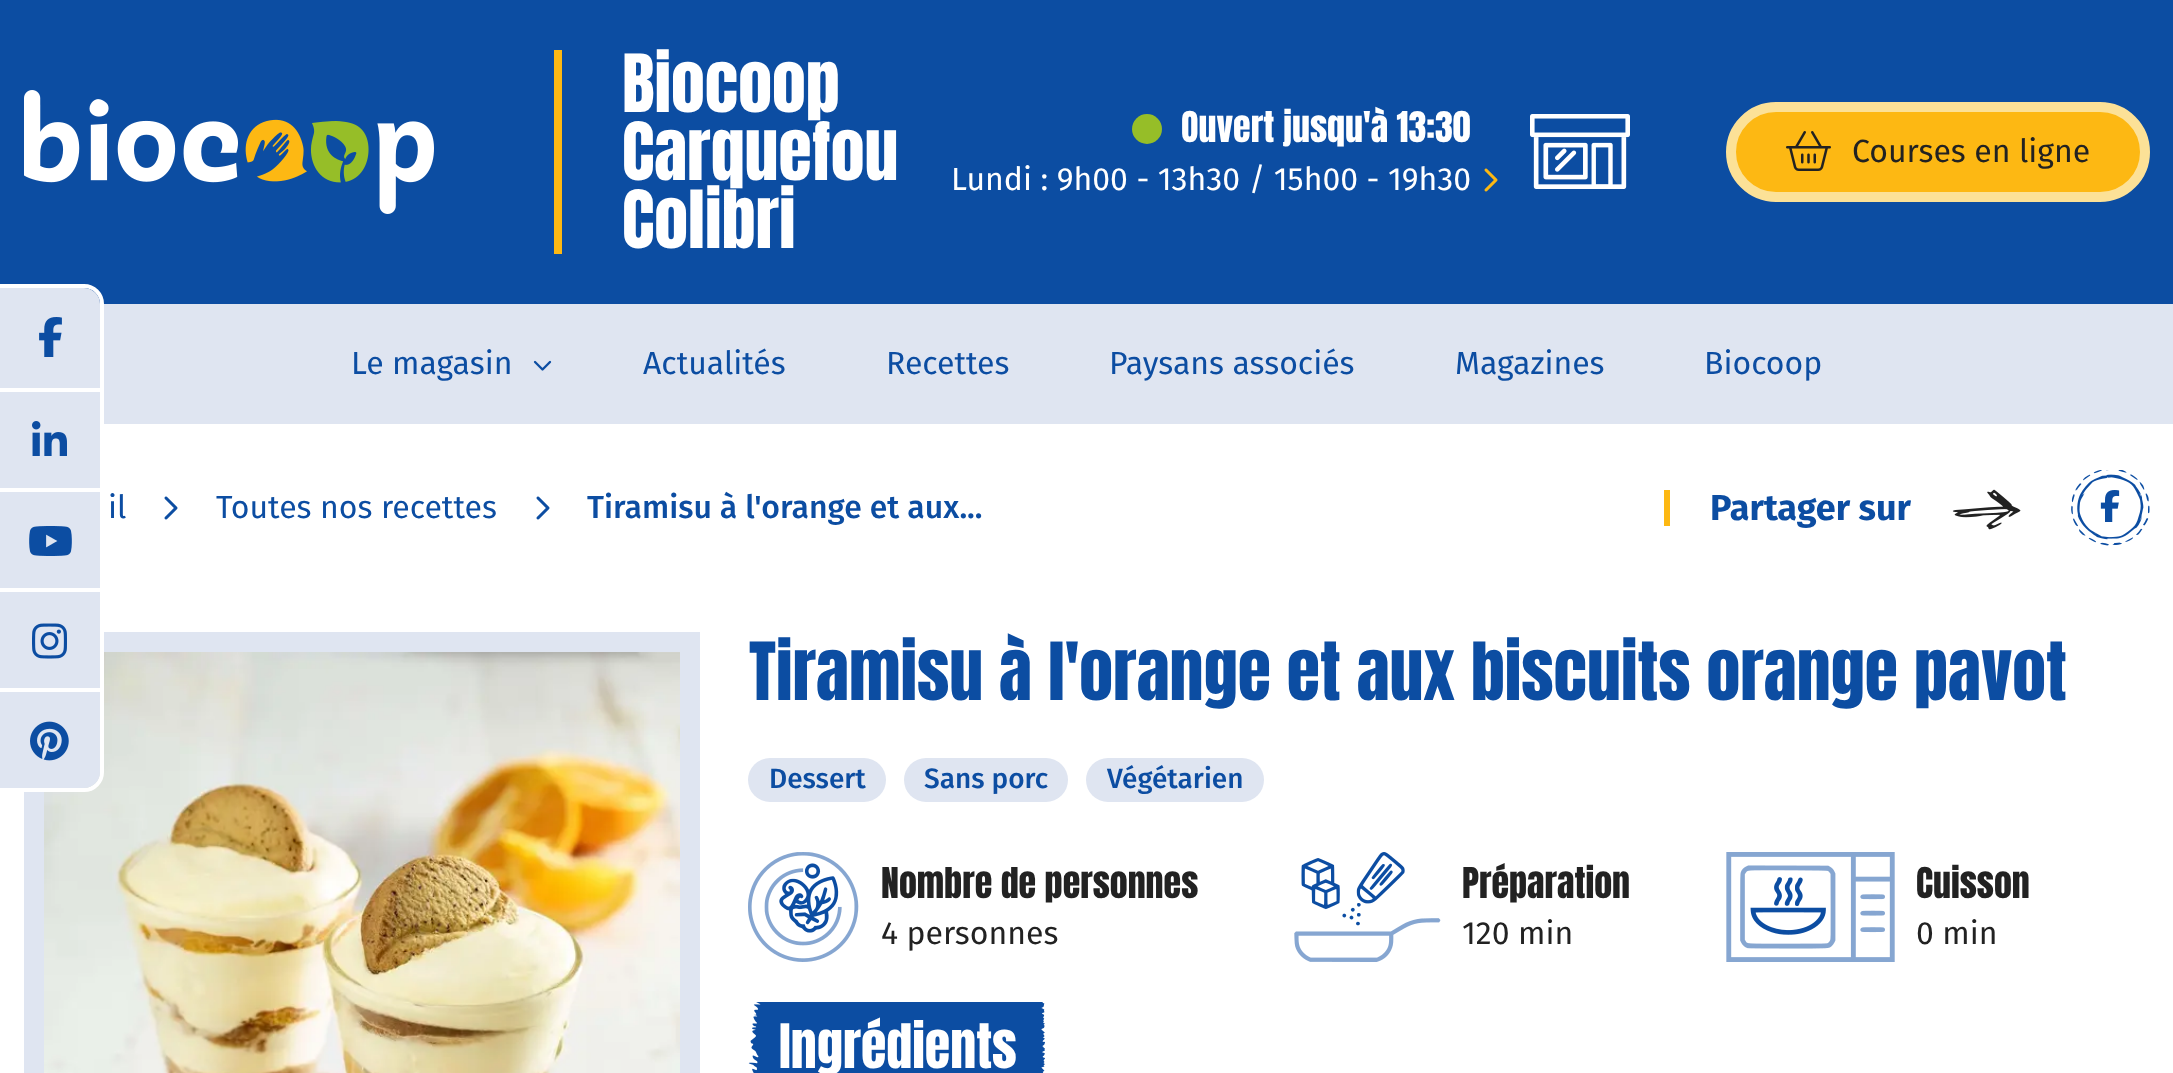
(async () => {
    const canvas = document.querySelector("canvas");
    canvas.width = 2173;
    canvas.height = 1073;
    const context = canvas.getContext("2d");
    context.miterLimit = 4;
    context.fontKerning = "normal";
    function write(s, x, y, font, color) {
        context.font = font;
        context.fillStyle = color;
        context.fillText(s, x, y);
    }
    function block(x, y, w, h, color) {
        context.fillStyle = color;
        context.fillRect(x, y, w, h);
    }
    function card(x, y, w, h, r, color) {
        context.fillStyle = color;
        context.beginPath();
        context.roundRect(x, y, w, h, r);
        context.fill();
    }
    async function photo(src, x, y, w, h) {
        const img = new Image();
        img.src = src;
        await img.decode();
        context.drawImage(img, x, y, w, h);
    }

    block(0, 0, 2173, 1073, "rgb(255, 255, 255)");
    block(0, 0, 2173, 304, "rgb(12, 77, 162)");
    await photo("media/1.png", 24, 90, 410, 124);
    block(554, 50, 8, 204, "rgb(253, 184, 19)");
    write("Biocoop", 622, 112, "68px Anton", "rgb(255, 255, 255)");
    write("Carquefou", 622, 180, "68px Anton", "rgb(255, 255, 255)");
    write("Colibri", 622, 248, "68px Anton", "rgb(255, 255, 255)");
    context.fillStyle = "rgb(150, 190, 40)";
    context.beginPath();
    context.arc(1147, 129, 15, 0, Math.PI * 2);
    context.fill();
    write("Ouvert jusqu'à 13:30", 1181, 142, "36px Anton", "rgb(255, 255, 255)");
    await photo("media/2.png", 1530, 114, 100, 75);
    write("Lundi : 9h00 - 13h30 / 15h00 - 19h30", 951, 190, "32px Fira Sans", "rgb(255, 255, 255)");
    await photo("media/3.png", 1484, 168, 14, 24);
    context.fillStyle = "rgb(253, 184, 19)";
    context.beginPath();
    context.roundRect(1731, 107, 414, 90, 45);
    context.fill();
    context.strokeStyle = "rgb(252, 225, 151)";
    context.lineWidth = 10;
    context.stroke();
    await photo("media/4.png", 1786, 131, 45, 40);
    write("Courses en ligne", 1852, 162, "32px Fira Sans", "rgb(34, 34, 34)");
    block(104, 304, 2069, 120, "rgb(223, 229, 241)");
    write("Le magasin", 351, 374, "32px Fira Sans", "rgb(12, 77, 162)");
    await photo("media/5.png", 533, 360, 19, 11);
    write("Actualités", 643, 374, "32px Fira Sans", "rgb(12, 77, 162)");
    write("Recettes", 886, 374, "32px Fira Sans", "rgb(12, 77, 162)");
    write("Paysans associés", 1109, 374, "32px Fira Sans", "rgb(12, 77, 162)");
    write("Magazines", 1455, 374, "32px Fira Sans", "rgb(12, 77, 162)");
    write("Biocoop", 1704, 374, "32px Fira Sans", "rgb(12, 77, 162)");
    context.beginPath();
    context.rect(34, 642, 656, 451);
    context.strokeStyle = "rgb(223, 229, 241)";
    context.lineWidth = 20;
    context.stroke();
    await photo("media/15.png", 44, 652, 636, 421);
    context.beginPath();
    context.moveTo(-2, 286);
    context.lineTo(84, 286);
    context.bezierCurveTo(94, 286, 102, 294, 102, 304);
    context.lineTo(102, 772);
    context.bezierCurveTo(102, 782, 94, 790, 84, 790);
    context.lineTo(-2, 790);
    context.closePath();
    context.strokeStyle = "rgb(255, 255, 255)";
    context.lineWidth = 4;
    context.stroke();
    context.fillStyle = "rgb(223, 229, 241)";
    context.beginPath();
    context.roundRect(0, 288, 100, 100, [0, 16, 0, 0]);
    context.fill();
    await photo("media/6.png", 39, 317, 23, 40);
    block(0, 392, 100, 96, "rgb(223, 229, 241)");
    await photo("media/7.png", 32, 421, 35, 35);
    block(0, 492, 100, 96, "rgb(223, 229, 241)");
    await photo("media/8.png", 29, 526, 43, 30);
    block(0, 592, 100, 96, "rgb(223, 229, 241)");
    await photo("media/9.png", 32, 623, 35, 36);
    context.beginPath();
    context.roundRect(0, 692, 100, 96, [0, 0, 16, 0]);
    context.fill();
    block(24, 688, 76, 4, "rgb(255, 255, 255)");
    await photo("media/10.png", 30, 721, 39, 40);
    write("il", 108, 518, "32px Fira Sans", "rgb(12, 77, 162)");
    await photo("media/11.png", 164, 496, 14, 24);
    write("Toutes nos recettes", 216, 518, "32px Fira Sans", "rgb(12, 77, 162)");
    await photo("media/11.png", 536, 496, 14, 24);
    write("Tiramisu à l'orange et aux...", 587, 518, "500 32px Fira Sans", "rgb(12, 77, 162)");
    block(1664, 490, 6, 36, "rgb(253, 184, 19)");
    write("Partager sur", 1710, 520, "bold 36px Fira Sans", "rgb(12, 77, 162)");
    await photo("media/12.png", 1952, 489, 69, 41);
    await photo("media/13.png", 2071, 470, 79, 76);
    await photo("media/14.png", 2100, 490, 20, 32);
    write("Tiramisu à l'orange et aux biscuits orange pavot", 749, 700, "68px Anton", "rgb(12, 77, 162)");
    card(748, 758, 138, 44, 22, "rgb(223, 229, 241)");
    write("Dessert", 769, 788, "500 28px Fira Sans", "rgb(12, 77, 162)");
    card(904, 758, 164, 44, 22, "rgb(223, 229, 241)");
    write("Sans porc", 924, 788, "500 28px Fira Sans", "rgb(12, 77, 162)");
    card(1086, 758, 178, 44, 22, "rgb(223, 229, 241)");
    write("Végétarien", 1107, 788, "500 28px Fira Sans", "rgb(12, 77, 162)");
    await photo("media/16.png", 748, 852, 111, 110);
    write("Nombre de personnes", 881, 898, "36px Anton", "rgb(34, 34, 34)");
    write("4 personnes", 881, 944, "32px Fira Sans", "rgb(34, 34, 34)");
    await photo("media/17.png", 1294, 852, 147, 110);
    write("Préparation", 1462, 898, "36px Anton", "rgb(34, 34, 34)");
    write("120 min", 1462, 944, "32px Fira Sans", "rgb(34, 34, 34)");
    await photo("media/18.png", 1726, 852, 169, 110);
    write("Cuisson", 1916, 898, "36px Anton", "rgb(34, 34, 34)");
    write("0 min", 1916, 944, "32px Fira Sans", "rgb(34, 34, 34)");
    await photo("media/19.png", 748, 1002, 297, 71);
    write("Ingrédients", 779, 1068, "52px Anton", "rgb(255, 255, 255)");
})();
